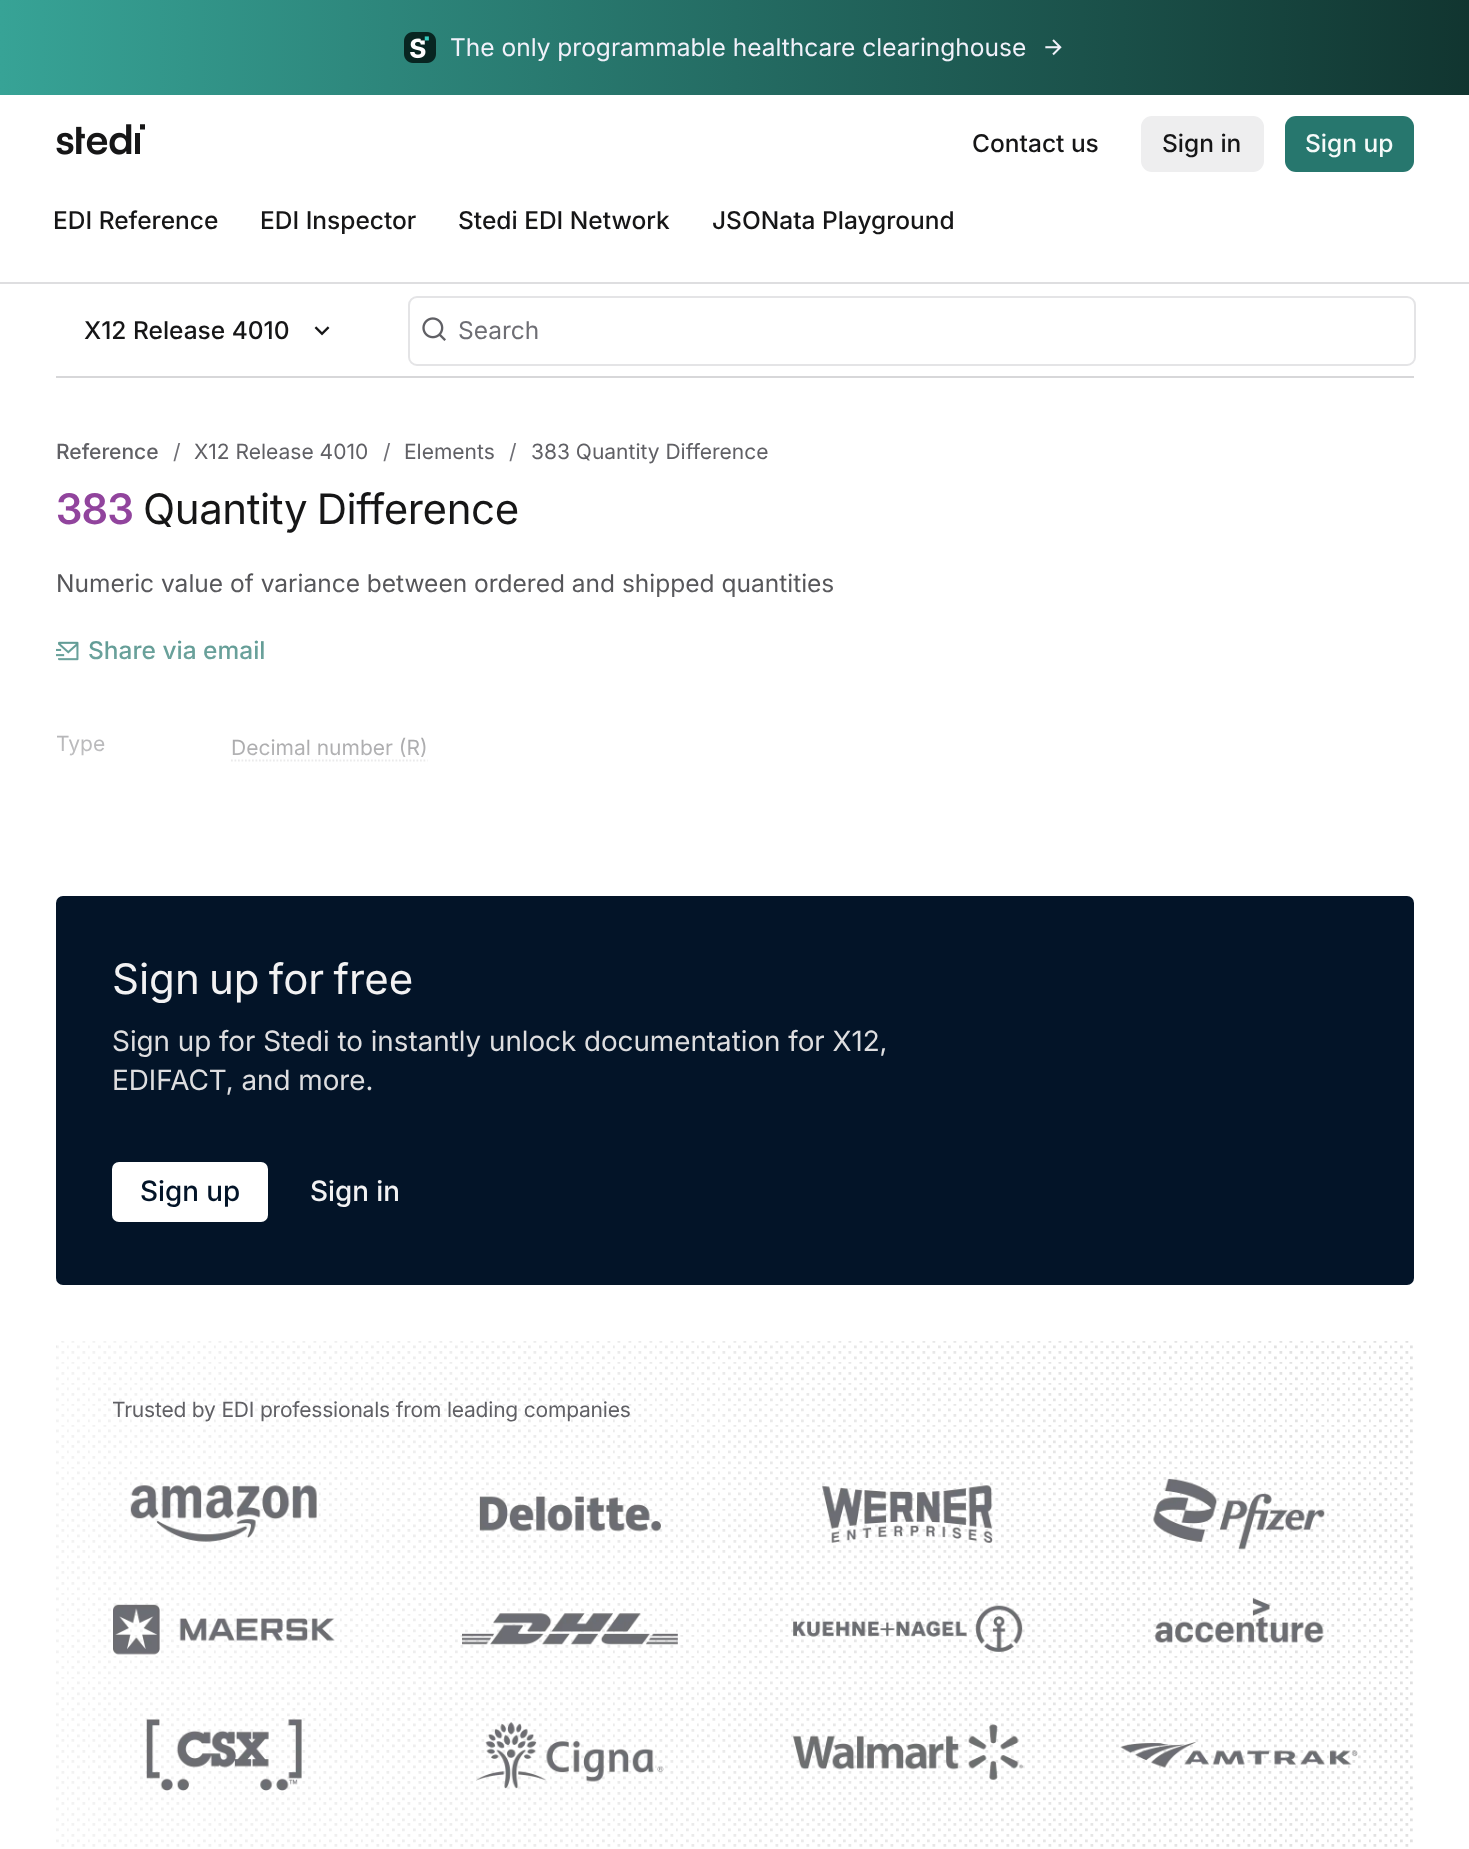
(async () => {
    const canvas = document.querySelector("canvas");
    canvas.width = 1469;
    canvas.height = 1849;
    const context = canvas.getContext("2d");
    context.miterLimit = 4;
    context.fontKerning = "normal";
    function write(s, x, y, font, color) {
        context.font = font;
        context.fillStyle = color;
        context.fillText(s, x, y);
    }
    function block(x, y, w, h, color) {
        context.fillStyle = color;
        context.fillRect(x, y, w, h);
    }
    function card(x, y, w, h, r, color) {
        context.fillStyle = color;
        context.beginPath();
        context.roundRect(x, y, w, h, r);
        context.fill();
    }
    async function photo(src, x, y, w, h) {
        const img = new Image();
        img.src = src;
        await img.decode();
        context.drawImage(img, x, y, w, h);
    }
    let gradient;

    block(0, 0, 1469, 1849, "rgb(255, 255, 255)");
    gradient = context.createLinearGradient(0, 47, 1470, 47);
    gradient.addColorStop(0, "rgb(55, 163, 150)");
    gradient.addColorStop(1, "rgb(17, 53, 48)");
    context.fillStyle = gradient;
    context.fillRect(0, 0, 1469, 95);
    await photo("media/1.png", 404, 32, 32, 31);
    write("The only programmable healthcare clearinghouse", 450, 56, "24.5px Inter", "rgb(241, 241, 250)");
    await photo("media/2.png", 1045, 39, 17, 17);
    block(0, 282, 1469, 2, "rgb(222, 222, 224)");
    await photo("media/3.png", 56, 124, 89, 31);
    write("Contact us", 972, 152, "500 24.5px Inter", "rgb(22, 22, 23)");
    card(1141, 116, 123, 56, 11, "rgb(238, 238, 239)");
    write("Sign in", 1162, 152, "500 24.5px Inter", "rgb(22, 22, 23)");
    card(1285, 116, 129, 56, 11, "rgb(39, 119, 110)");
    write("Sign up", 1305, 152, "500 24.5px Inter", "rgb(245, 250, 249)");
    write("EDI Reference", 53, 229, "500 24.5px Inter", "rgb(22, 22, 23)");
    write("EDI Inspector", 260, 229, "500 24.5px Inter", "rgb(22, 22, 23)");
    write("Stedi EDI Network", 458, 229, "500 24.5px Inter", "rgb(22, 22, 23)");
    write("JSONata Playground", 712, 229, "500 24.5px Inter", "rgb(22, 22, 23)");
    block(56, 376, 1358, 2, "rgb(215, 215, 217)");
    write("X12 Release 4010", 84, 339, "500 24.5px Inter", "rgb(22, 22, 23)");
    await photo("media/4.png", 314, 326, 16, 10);
    context.beginPath();
    context.roundRect(409, 297, 1006, 68, 8);
    context.strokeStyle = "rgb(228, 228, 230)";
    context.lineWidth = 2;
    context.stroke();
    await photo("media/5.png", 422, 317, 24, 24);
    write("Search", 458, 339, "24.5px Inter", "rgb(110, 110, 116)");
    write("Reference", 56, 459, "500 21px Inter", "rgb(96, 96, 101)");
    write("/", 173, 459, "21px Inter", "rgb(110, 110, 116)");
    write("X12 Release 4010", 194, 459, "21px Inter", "rgb(96, 96, 101)");
    write("/", 383, 459, "21px Inter", "rgb(110, 110, 116)");
    write("Elements", 404, 459, "21px Inter", "rgb(96, 96, 101)");
    write("/", 509, 459, "21px Inter", "rgb(110, 110, 116)");
    write("383 Quantity Difference", 531, 459, "21px Inter", "rgb(96, 96, 101)");
    context.letterSpacing = "-0.4px";
    write("383", 56, 524, "600 42px Inter", "rgb(145, 68, 157)");
    context.wordSpacing = "-2px";
    write("Quantity Difference", 143, 524, "42px Inter", "rgb(22, 22, 23)");
    context.letterSpacing = "0px";
    context.wordSpacing = "0px";
    write("Numeric value of variance between ordered and shipped quantities", 56, 592, "24.5px Inter", "rgb(66, 66, 70)");
    await photo("media/6.png", 56, 641, 23, 20);
    write("Share via email", 88, 659, "500 24.5px Inter", "rgb(39, 119, 110)");
    write("Type", 56, 751, "21px Inter", "rgb(96, 96, 101)");
    write("Decimal number (R)", 231, 755, "21px Inter", "rgb(66, 66, 70)");
    context.beginPath();
    context.moveTo(231, 760.5);
    context.lineTo(427.5, 760.5);
    context.strokeStyle = "rgb(202, 202, 203)";
    context.lineWidth = 1.8;
    context.setLineDash([1.75, 1.75]);
    context.stroke();
    gradient = context.createLinearGradient(735, 546, 735, 896);
    gradient.addColorStop(0, "rgba(255, 255, 255, 0)");
    gradient.addColorStop(1, "rgb(255, 255, 255)");
    context.fillStyle = gradient;
    context.fillRect(56, 573, 777, 189);
    card(56, 896, 1358, 389, 7, "rgb(3, 20, 40)");
    context.wordSpacing = "-2.5px";
    write("Sign up for free", 112, 994, "42px Inter", "rgb(242, 242, 243)");
    context.wordSpacing = "0px";
    write("Sign up for Stedi to instantly unlock documentation for X12,", 112, 1051, "28px 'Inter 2'", "rgb(222, 222, 224)");
    write("EDIFACT, and more.", 112, 1090, "28px 'Inter 2'", "rgb(222, 222, 224)");
    card(112, 1162, 156, 60, 7, "rgb(255, 255, 255)");
    write("Sign up", 140, 1201, "500 28px 'Inter 2'", "rgb(3, 20, 40)");
    write("Sign in", 310, 1201, "500 28px 'Inter 2'", "rgb(242, 242, 243)");
    await photo("media/7.png", 56, 1341, 1357, 506);
    gradient = context.createLinearGradient(56, 1691, 1414, 1691);
    gradient.addColorStop(0, "rgba(255, 255, 255, 0.75)");
    gradient.addColorStop(1, "rgba(255, 255, 255, 0.38)");
    context.fillStyle = gradient;
    context.beginPath();
    context.roundRect(56, 1341, 1358, 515, 7);
    context.fill();
    context.letterSpacing = "-0.2px";
    write("Trusted by EDI professionals from leading companies", 112, 1417, "21px Inter", "rgb(96, 96, 101)");
    await photo("media/8.png", 113, 1478, 1245, 313);
})();
